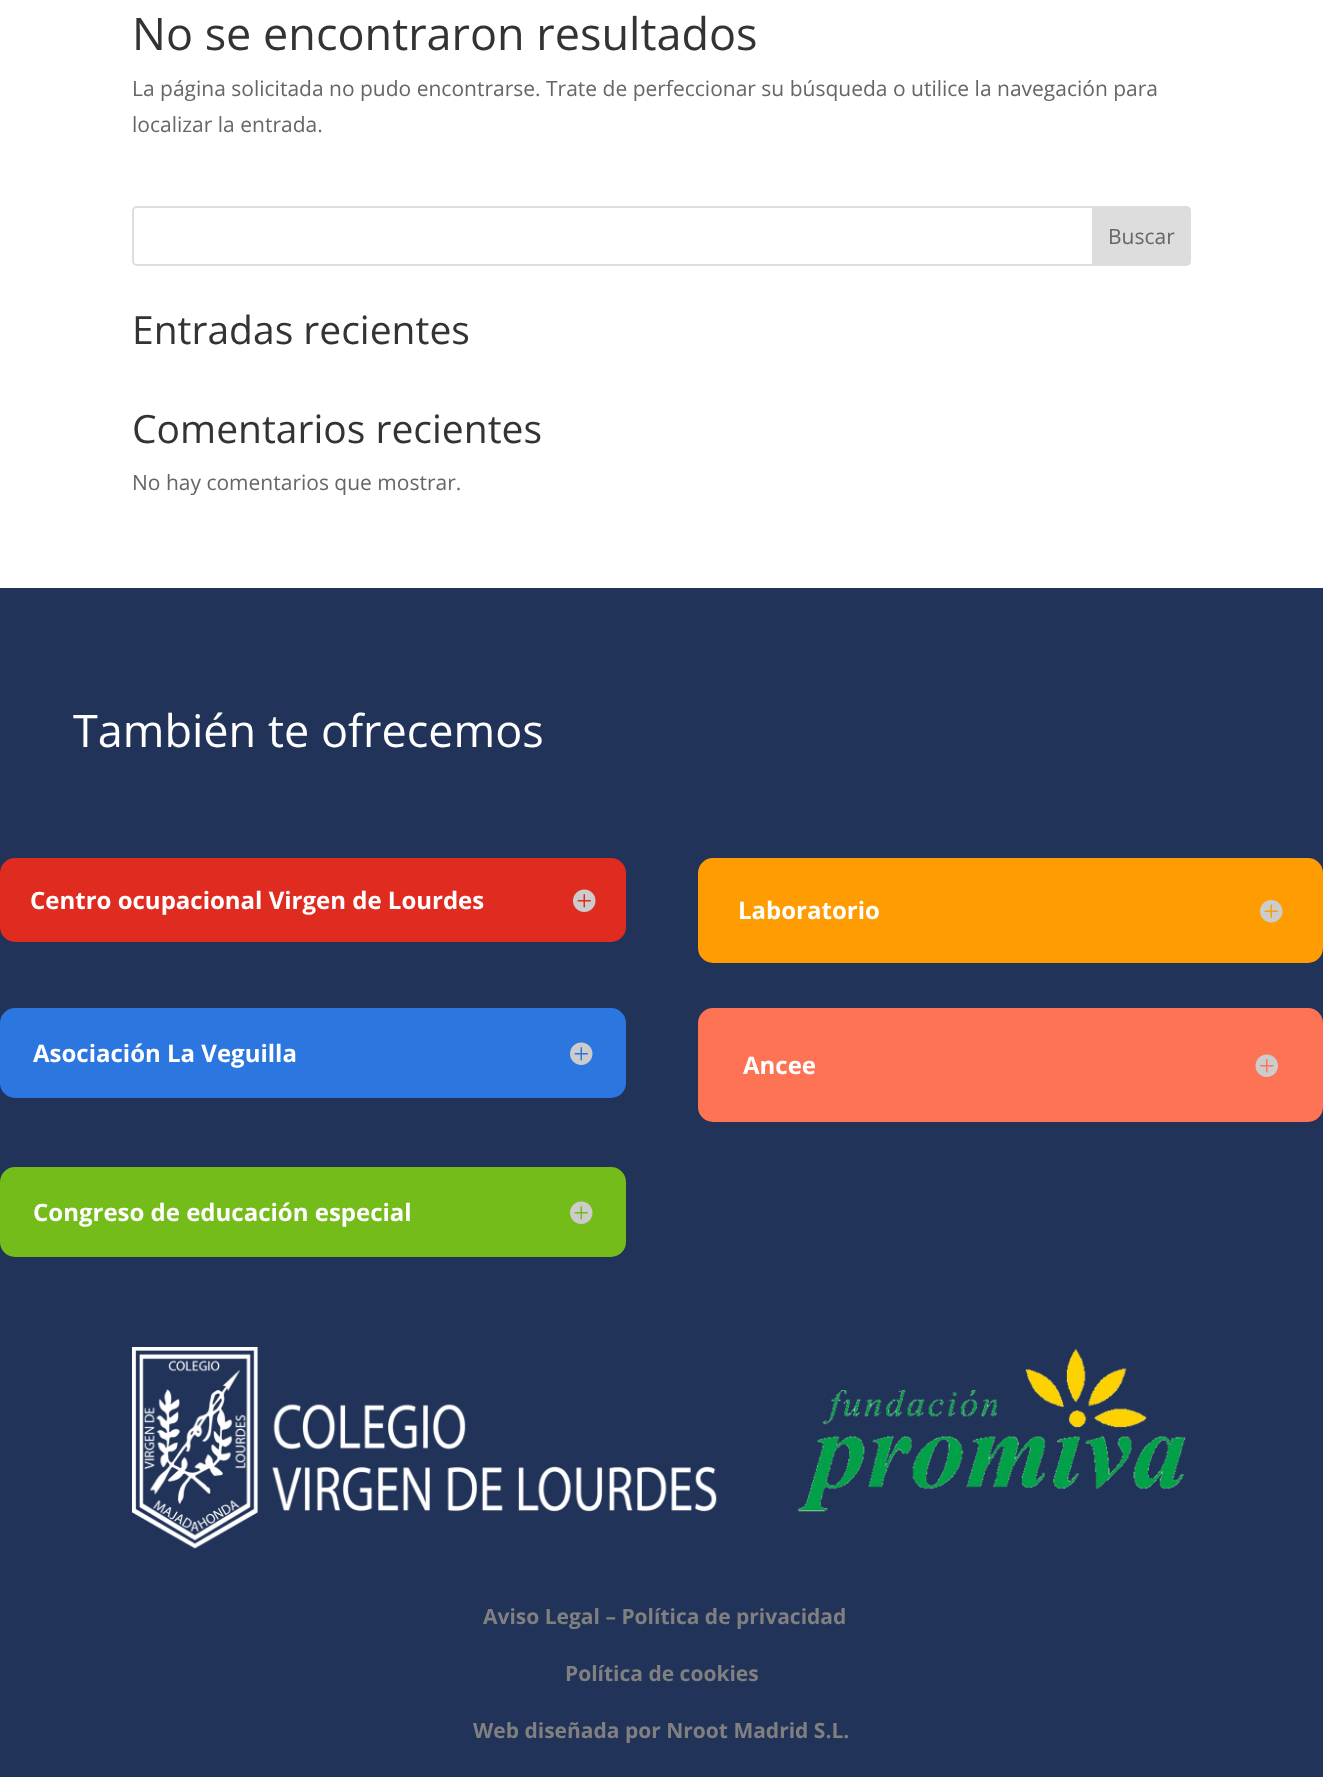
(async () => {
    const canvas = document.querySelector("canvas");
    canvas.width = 1323;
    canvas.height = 1777;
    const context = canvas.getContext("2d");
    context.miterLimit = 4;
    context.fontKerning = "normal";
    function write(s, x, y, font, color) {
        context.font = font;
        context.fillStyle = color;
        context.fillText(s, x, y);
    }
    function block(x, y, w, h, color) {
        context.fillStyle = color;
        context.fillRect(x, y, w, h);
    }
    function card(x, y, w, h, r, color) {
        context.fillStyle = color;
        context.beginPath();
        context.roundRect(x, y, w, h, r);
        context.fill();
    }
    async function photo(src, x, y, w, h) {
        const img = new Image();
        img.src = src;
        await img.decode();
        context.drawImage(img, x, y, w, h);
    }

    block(0, 0, 1323, 1777, "rgb(255, 255, 255)");
    write("No se encontraron resultados", 132, 50, "45px Open Sans", "rgb(51, 51, 51)");
    write("La página solicitada no pudo encontrarse. Trate de perfeccionar su búsqueda o utilice la navegación para", 132, 96, "21px Open Sans", "rgb(102, 102, 102)");
    write("localizar la entrada.", 132, 132, "21px Open Sans", "rgb(102, 102, 102)");
    context.beginPath();
    context.roundRect(133, 207, 1057, 58, 4);
    context.strokeStyle = "rgb(221, 221, 221)";
    context.lineWidth = 2;
    context.stroke();
    context.fillStyle = "rgb(221, 221, 221)";
    context.beginPath();
    context.roundRect(1093, 207, 97, 58, [0, 4, 4, 0]);
    context.fill();
    context.stroke();
    write("Buscar", 1108, 244, "21px Open Sans", "rgb(102, 102, 102)");
    write("Entradas recientes", 132, 344, "39px Open Sans", "rgb(51, 51, 51)");
    write("Comentarios recientes", 132, 443, "39px Open Sans", "rgb(51, 51, 51)");
    write("No hay comentarios que mostrar.", 132, 490, "21px Open Sans", "rgb(102, 102, 102)");
    block(0, 588, 1323, 1189, "rgb(33, 51, 89)");
    write("También te ofrecemos", 73, 747, "45px Open Sans", "rgb(255, 255, 255)");
    card(0, 858, 626, 84, 15, "rgb(224, 43, 32)");
    write("Centro ocupacional Virgen de Lourdes", 30, 909, "bold 24px Open Sans", "rgb(255, 255, 255)");
    await photo("media/1.png", 573, 889, 23, 23);
    context.fillStyle = "rgb(255, 156, 2)";
    context.beginPath();
    context.roundRect(703.5, 863.5, 614, 94, 9.5);
    context.fill();
    context.strokeStyle = "rgb(255, 156, 2)";
    context.lineWidth = 11;
    context.stroke();
    write("Laboratorio", 738, 919, "bold 24px Open Sans", "rgb(255, 255, 255)");
    await photo("media/2.png", 1260, 900, 23, 23);
    context.fillStyle = "rgb(43, 118, 223)";
    context.beginPath();
    context.roundRect(1.5, 1009.5, 623, 87, 13.5);
    context.fill();
    context.strokeStyle = "rgb(43, 118, 223)";
    context.lineWidth = 3;
    context.stroke();
    write("Asociación La Veguilla", 33, 1062, "bold 24px Open Sans", "rgb(255, 255, 255)");
    await photo("media/3.png", 570, 1042, 23, 23);
    context.fillStyle = "rgb(255, 115, 85)";
    context.beginPath();
    context.roundRect(705.5, 1015.5, 610, 99, 7.5);
    context.fill();
    context.strokeStyle = "rgb(255, 115, 85)";
    context.lineWidth = 15;
    context.stroke();
    write("Ancee", 743, 1074, "bold 24px Open Sans", "rgb(255, 255, 255)");
    await photo("media/4.png", 1255, 1054, 23, 23);
    context.fillStyle = "rgb(116, 188, 25)";
    context.beginPath();
    context.roundRect(1.5, 1168.5, 623, 87, 13.5);
    context.fill();
    context.strokeStyle = "rgb(116, 188, 25)";
    context.lineWidth = 3;
    context.stroke();
    write("Congreso de educación especial", 33, 1221, "bold 24px Open Sans", "rgb(255, 255, 255)");
    await photo("media/5.png", 570, 1201, 23, 23);
    await photo("media/6.png", 132, 1347, 1054, 202);
    write("Aviso Legal – Política de privacidad", 483, 1624, "bold 21px Open Sans", "rgb(128, 128, 128)");
    write("Política de cookies", 565, 1681, "bold 21px Open Sans", "rgb(128, 128, 128)");
    write("Web diseñada por Nroot Madrid S.L.", 473, 1738, "bold 21px Open Sans", "rgb(128, 128, 128)");
})();
